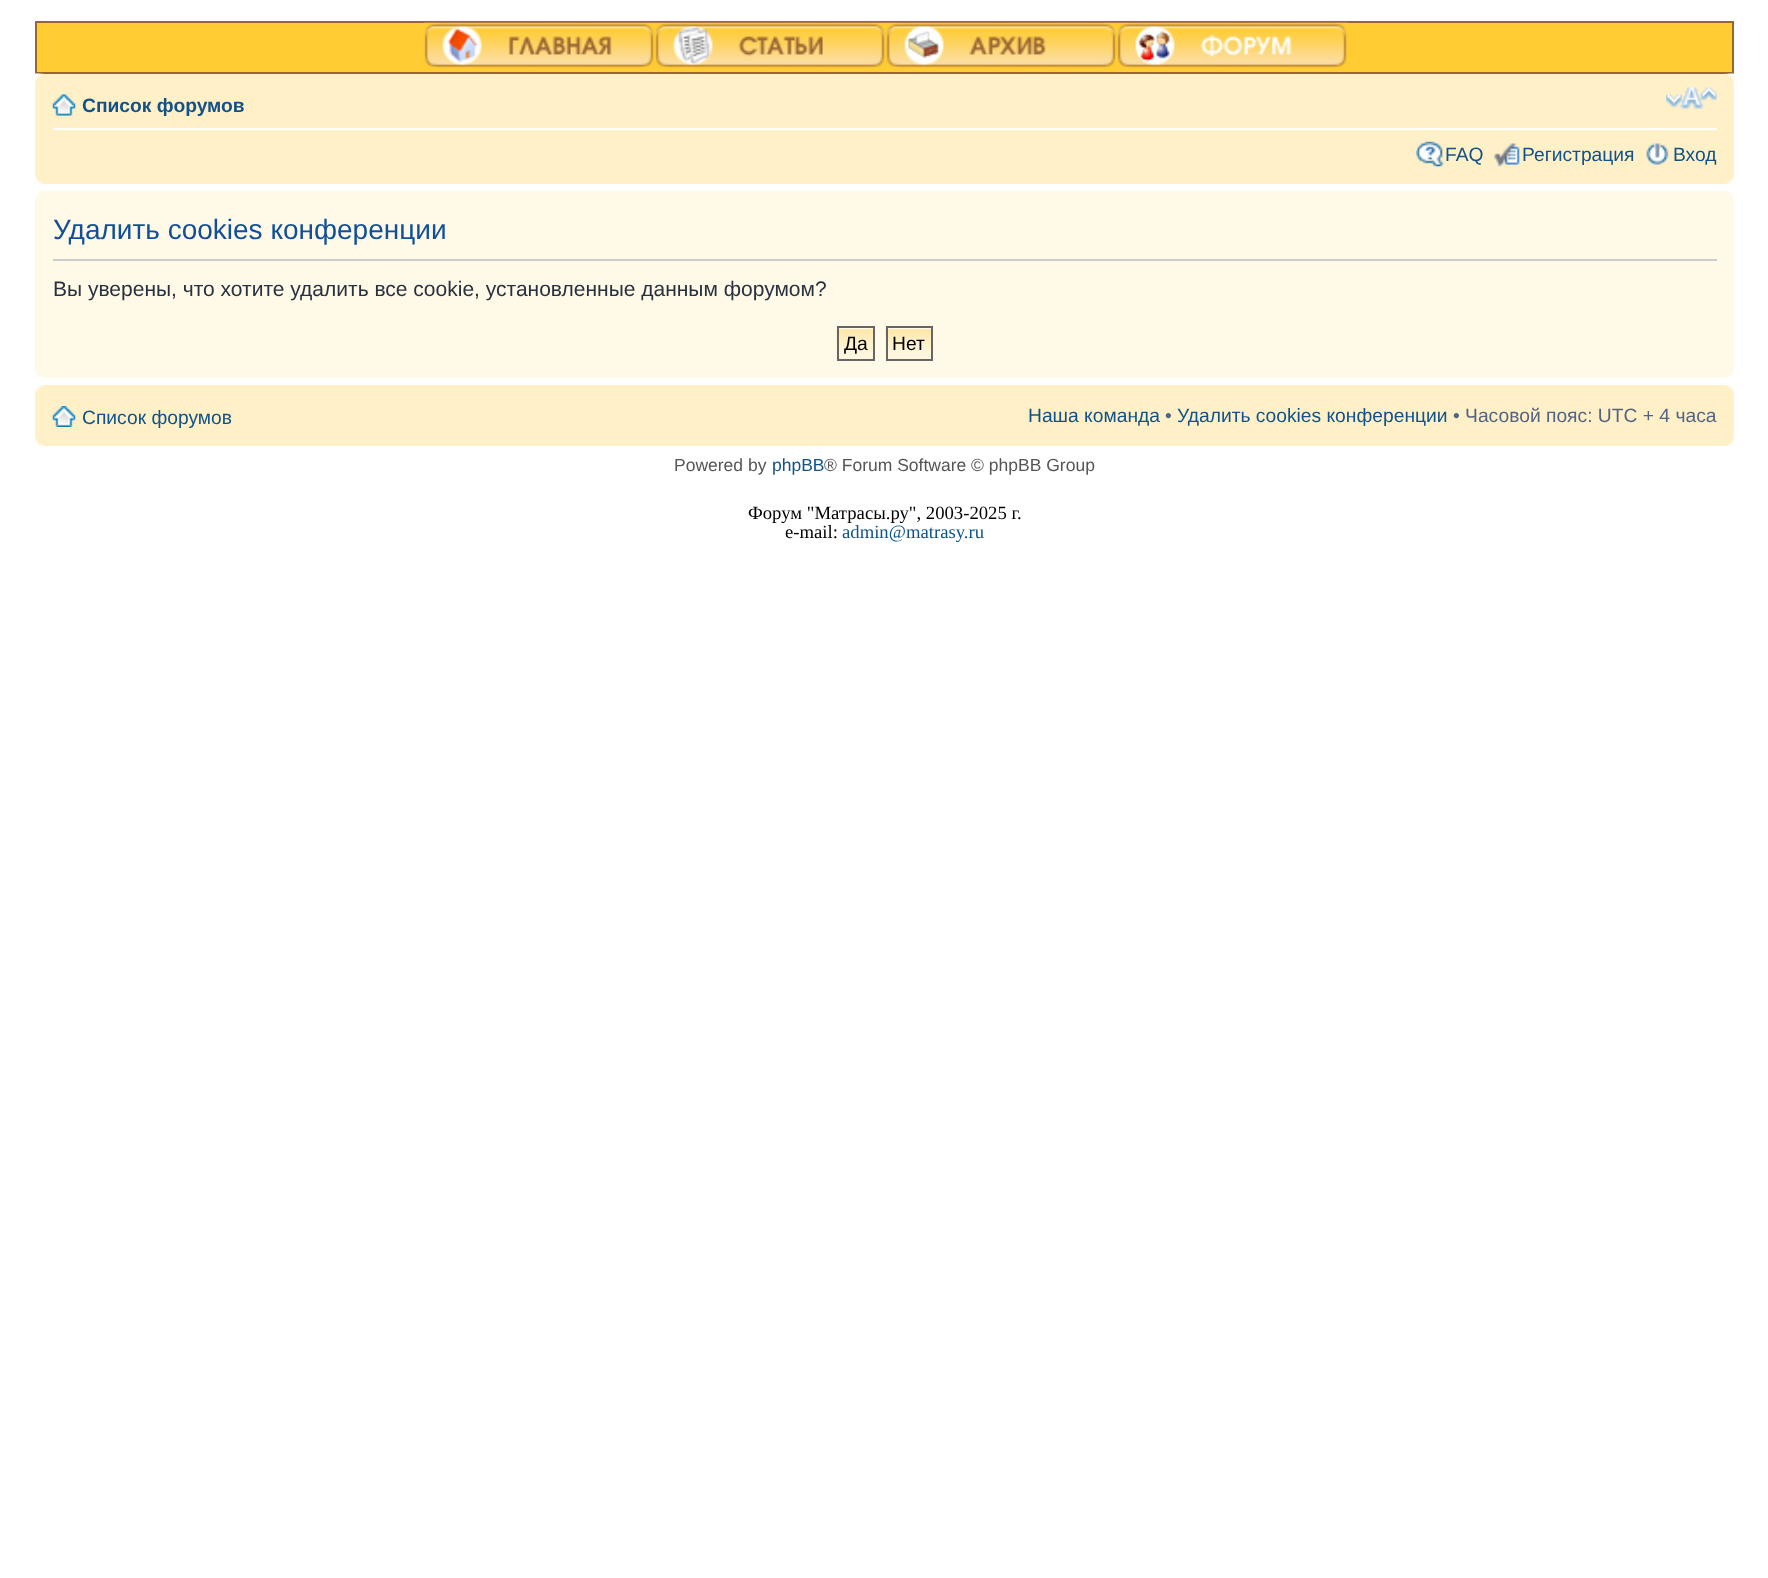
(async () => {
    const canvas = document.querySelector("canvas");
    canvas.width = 1768;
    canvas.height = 1578;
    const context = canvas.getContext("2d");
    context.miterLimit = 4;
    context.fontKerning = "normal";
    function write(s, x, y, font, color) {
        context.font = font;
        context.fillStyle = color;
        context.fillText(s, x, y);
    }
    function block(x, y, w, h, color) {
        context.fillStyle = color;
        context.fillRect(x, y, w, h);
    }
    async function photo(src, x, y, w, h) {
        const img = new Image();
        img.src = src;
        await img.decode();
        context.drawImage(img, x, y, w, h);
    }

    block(0, 0, 1768, 1578, "rgb(255, 255, 255)");
    context.fillStyle = "rgb(255, 204, 51)";
    context.beginPath();
    context.rect(36, 22, 1697, 51);
    context.fill();
    context.strokeStyle = "rgb(153, 102, 51)";
    context.lineWidth = 2;
    context.stroke();
    await photo("media/1.png", 423, 22, 232, 46);
    await photo("media/2.png", 654, 22, 232, 46);
    await photo("media/3.png", 885, 22, 232, 46);
    await photo("media/4.png", 1116, 22, 232, 46);
    block(35, 74, 1699, 110, "rgb(255, 240, 199)");
    await photo("media/5.png", 35, 73, 10, 9);
    await photo("media/6.png", 1725, 73, 9, 9);
    block(53, 128, 1664, 2, "rgb(255, 255, 255)");
    await photo("media/7.png", 52, 94, 24, 22);
    write("Список форумов", 82, 112, "bold 19.25px Liberation Sans", "rgb(16, 82, 137)");
    await photo("media/8.png", 1666, 87, 51, 22);
    await photo("media/9.png", 1415, 141, 29, 26);
    write("FAQ", 1445, 161, "19.25px Liberation Sans", "rgb(16, 82, 137)");
    await photo("media/10.png", 1494, 143, 26, 24);
    write("Регистрация", 1522, 161, "19.25px Liberation Sans", "rgb(16, 82, 137)");
    await photo("media/11.png", 1646, 143, 23, 22);
    write("Вход", 1673, 161, "19.25px Liberation Sans", "rgb(16, 82, 137)");
    await photo("media/12.png", 35, 175, 9, 9);
    await photo("media/13.png", 1725, 175, 9, 9);
    block(35, 191, 1699, 187, "rgb(255, 249, 231)");
    await photo("media/14.png", 35, 191, 9, 8);
    await photo("media/15.png", 1726, 191, 8, 8);
    block(53, 259, 1664, 2, "rgb(204, 204, 204)");
    write("Удалить cookies конференции", 53, 239, "28px Liberation Sans", "rgb(17, 80, 152)");
    write("Вы уверены, что хотите удалить все cookie, установленные данным форумом?", 53, 296, "21px Liberation Sans", "rgb(40, 49, 63)");
    await photo("media/16.png", 836, 327, 37, 34);
    context.strokeStyle = "rgb(102, 102, 102)";
    context.strokeRect(838, 327, 36, 33);
    write("Да", 844, 350, "19.25px Liberation Sans", "rgb(0, 0, 0)");
    await photo("media/17.png", 885, 327, 46, 34);
    context.strokeRect(887, 327, 45, 33);
    write("Нет", 892, 350, "19.25px Liberation Sans", "rgb(0, 0, 0)");
    await photo("media/18.png", 35, 370, 9, 8);
    await photo("media/19.png", 1726, 370, 8, 8);
    block(35, 385, 1699, 61, "rgb(255, 240, 199)");
    await photo("media/20.png", 35, 385, 9, 9);
    await photo("media/21.png", 1725, 385, 9, 9);
    await photo("media/22.png", 52, 406, 24, 21);
    write("Список форумов", 82, 424, "19.25px Liberation Sans", "rgb(16, 82, 137)");
    write("Наша команда", 1028, 422, "19.25px Liberation Sans", "rgb(16, 82, 137)");
    write("•", 1165, 422, "19.25px Liberation Sans", "rgb(83, 100, 130)");
    write("Удалить cookies конференции", 1177, 422, "19.25px Liberation Sans", "rgb(16, 82, 137)");
    write("• Часовой пояс: UTC + 4 часа", 1453, 422, "19.25px Liberation Sans", "rgb(83, 100, 130)");
    await photo("media/23.png", 35, 437, 9, 9);
    await photo("media/24.png", 1725, 437, 9, 9);
    write("Powered by", 674, 471, "17.5px Liberation Sans", "rgb(85, 85, 85)");
    write("phpBB", 772, 471, "17.5px Liberation Sans", "rgb(16, 82, 137)");
    write("® Forum Software © phpBB Group", 824, 471, "17.5px Liberation Sans", "rgb(85, 85, 85)");
    write("Форум \"Матрасы.ру\", 2003-2025 г.", 748, 519, "18.7px Liberation Serif", "rgb(0, 0, 0)");
    write("e-mail:", 785, 538, "18.7px Liberation Serif", "rgb(0, 0, 0)");
    write("admin@matrasy.ru", 842, 538, "18.7px Liberation Serif", "rgb(16, 82, 137)");
})();
